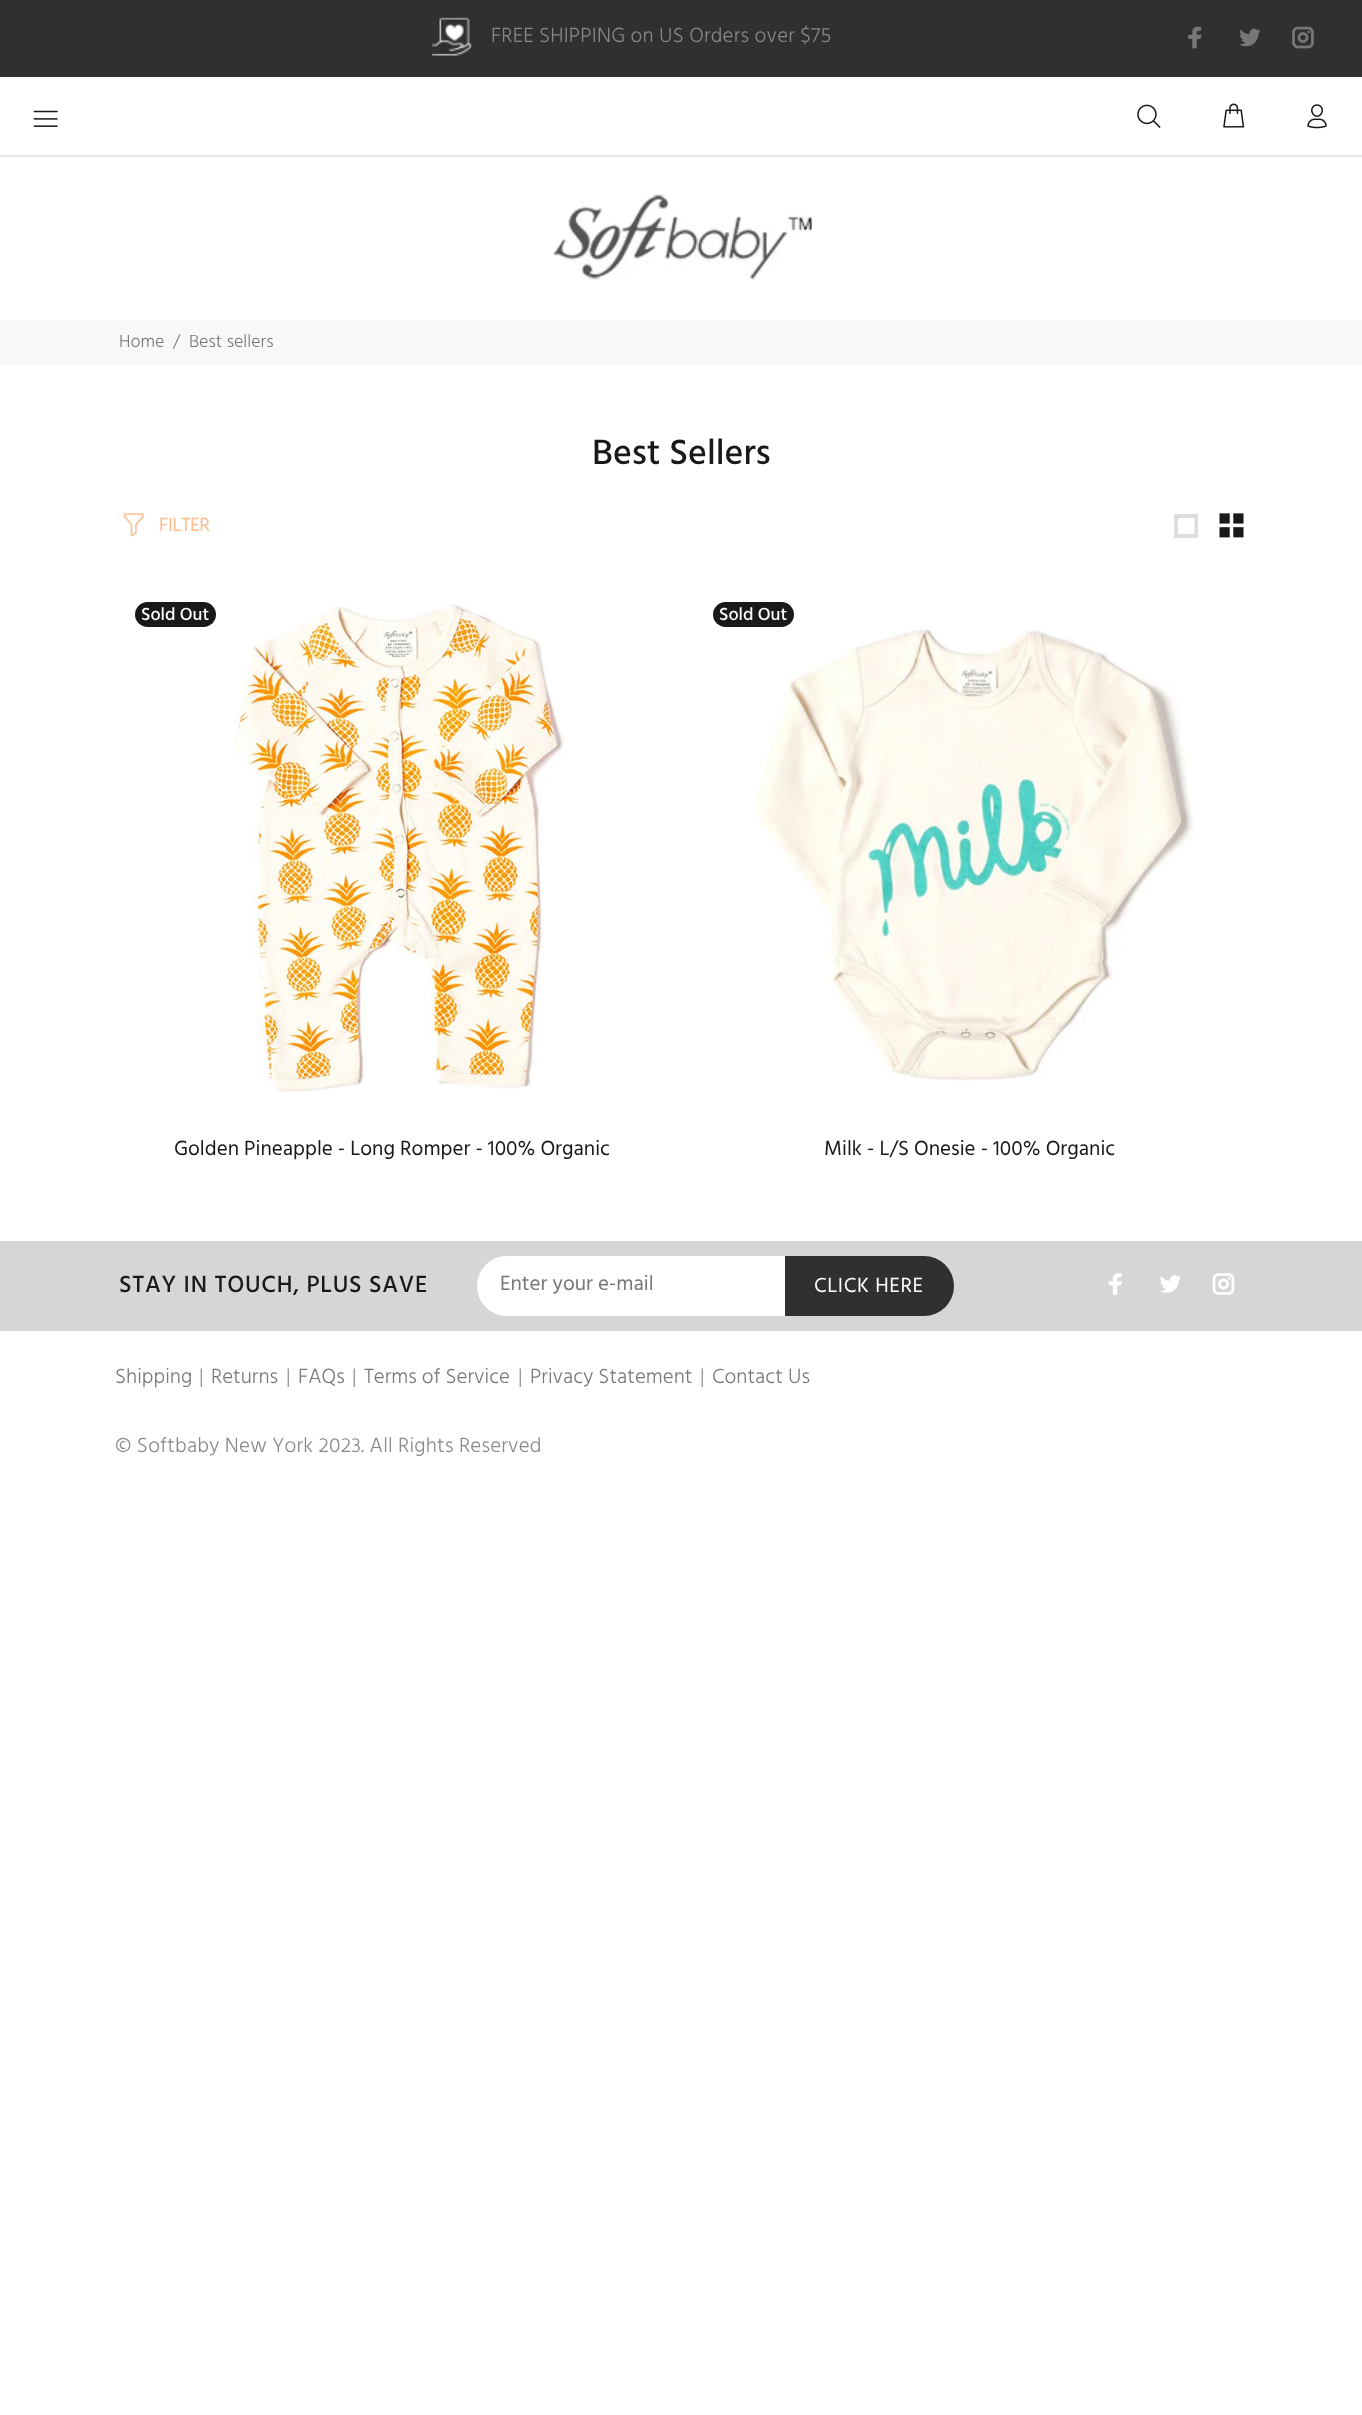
(async () => {
    const canvas = document.querySelector("canvas");
    canvas.width = 1362;
    canvas.height = 2415;
    const context = canvas.getContext("2d");
    context.miterLimit = 4;
    context.fontKerning = "normal";
    function write(s, x, y, font, color) {
        context.font = font;
        context.fillStyle = color;
        context.fillText(s, x, y);
    }
    function block(x, y, w, h, color) {
        context.fillStyle = color;
        context.fillRect(x, y, w, h);
    }
    function card(x, y, w, h, r, color) {
        context.fillStyle = color;
        context.beginPath();
        context.roundRect(x, y, w, h, r);
        context.fill();
    }
    async function photo(src, x, y, w, h) {
        const img = new Image();
        img.src = src;
        await img.decode();
        context.drawImage(img, x, y, w, h);
    }

    block(0, 0, 1362, 2415, "rgb(255, 255, 255)");
    block(0, 0, 1362, 77, "rgb(48, 48, 48)");
    await photo("media/1.png", 431, 17, 41, 39);
    context.letterSpacing = "0.2px";
    write("FREE SHIPPING on US Orders over $75", 491, 42, "300 21px Hind", "rgb(136, 136, 136)");
    await photo("media/2.png", 1188, 26, 14, 23);
    await photo("media/3.png", 1239, 28, 22, 19);
    await photo("media/4.png", 1292, 26, 22, 23);
    await photo("media/5.png", 33, 110, 25, 17);
    await photo("media/6.png", 1137, 104, 24, 24);
    await photo("media/7.png", 1223, 103, 22, 25);
    await photo("media/8.png", 1307, 104, 20, 25);
    block(0, 155, 1362, 2, "rgb(233, 231, 231)");
    await photo("media/9.png", 553, 194, 260, 86);
    block(0, 320, 1362, 45, "rgb(247, 248, 250)");
    context.letterSpacing = "0px";
    write("Home", 119, 347, "300 18px Hind", "rgb(119, 119, 119)");
    write("/", 173, 347, "300 18px Hind", "rgb(119, 119, 119)");
    write("Best sellers", 189, 347, "300 18px Hind", "rgb(119, 119, 119)");
    write("Best Sellers", 592, 464, "500 36px Hind", "rgb(25, 25, 25)");
    await photo("media/10.png", 124, 513, 20, 24);
    context.letterSpacing = "-0.5px";
    write("FILTER", 159, 531, "19.5px Hind", "rgb(255, 188, 140)");
    context.fillStyle = "rgb(221, 221, 221)";
    context.beginPath();
    context.moveTo(1174, 538);
    context.lineTo(1174, 514);
    context.lineTo(1198, 514);
    context.lineTo(1198, 538);
    context.closePath();
    context.moveTo(1178, 534);
    context.lineTo(1194.5, 534);
    context.lineTo(1194.5, 518);
    context.lineTo(1178, 518);
    context.closePath();
    context.fill();
    await photo("media/11.png", 1219, 513, 25, 25);
    card(135, 602, 81, 25, 12.5, "rgb(25, 25, 25)");
    context.letterSpacing = "0px";
    write("Sold Out", 141, 620, "500 18px Hind", "rgb(255, 255, 255)");
    await photo("media/12.png", 234, 604, 331, 489);
    write("Golden Pineapple - Long Romper - 100% Organic", 174, 1155, "21px Hind", "rgb(25, 25, 25)");
    card(713, 602, 81, 25, 12.5, "rgb(25, 25, 25)");
    write("Sold Out", 719, 620, "500 18px Hind", "rgb(255, 255, 255)");
    await photo("media/13.png", 754, 629, 440, 452);
    write("Milk - L/S Onesie - 100% Organic", 824, 1155, "21px Hind", "rgb(25, 25, 25)");
    block(0, 1241, 1362, 90, "rgb(214, 214, 214)");
    context.letterSpacing = "0.75px";
    write("STAY IN TOUCH, PLUS SAVE", 119, 1292, "500 24px Hind", "rgb(25, 25, 25)");
    context.fillStyle = "rgb(255, 255, 255)";
    context.beginPath();
    context.roundRect(478, 1257, 306, 58, [29, 0, 0, 29]);
    context.fill();
    context.strokeStyle = "rgb(255, 255, 255)";
    context.lineWidth = 2;
    context.stroke();
    context.letterSpacing = "0px";
    write("Enter your e-mail", 500, 1290, "21px Hind", "rgb(119, 119, 119)");
    context.fillStyle = "rgb(48, 48, 48)";
    context.beginPath();
    context.roundRect(785, 1256, 169, 60, [0, 30, 30, 0]);
    context.fill();
    context.letterSpacing = "0.6px";
    write("CLICK HERE", 814, 1292, "21px Hind", "rgb(255, 255, 255)");
    await photo("media/14.png", 1108, 1273, 14, 22);
    await photo("media/15.png", 1160, 1275, 21, 18);
    await photo("media/16.png", 1212, 1273, 23, 22);
    context.letterSpacing = "0px";
    write("Shipping", 115, 1383, "300 21px Hind", "rgb(119, 119, 119)");
    write("|", 199, 1383, "300 21px Hind", "rgb(136, 136, 136)");
    write("Returns", 211, 1383, "300 21px Hind", "rgb(119, 119, 119)");
    write("|", 286, 1383, "300 21px Hind", "rgb(136, 136, 136)");
    write("FAQs", 298, 1383, "300 21px Hind", "rgb(119, 119, 119)");
    write("|", 352, 1383, "300 21px Hind", "rgb(136, 136, 136)");
    write("Terms of Service", 364, 1383, "300 21px Hind", "rgb(119, 119, 119)");
    write("|", 518, 1383, "300 21px Hind", "rgb(136, 136, 136)");
    write("Privacy Statement", 530, 1383, "300 21px Hind", "rgb(119, 119, 119)");
    write("|", 700, 1383, "300 21px Hind", "rgb(136, 136, 136)");
    write("Contact Us", 712, 1383, "300 21px Hind", "rgb(119, 119, 119)");
    context.letterSpacing = "0.2px";
    write("© Softbaby New York 2023. All Rights Reserved", 115, 1452, "300 21px Hind", "rgb(136, 136, 136)");
})();
